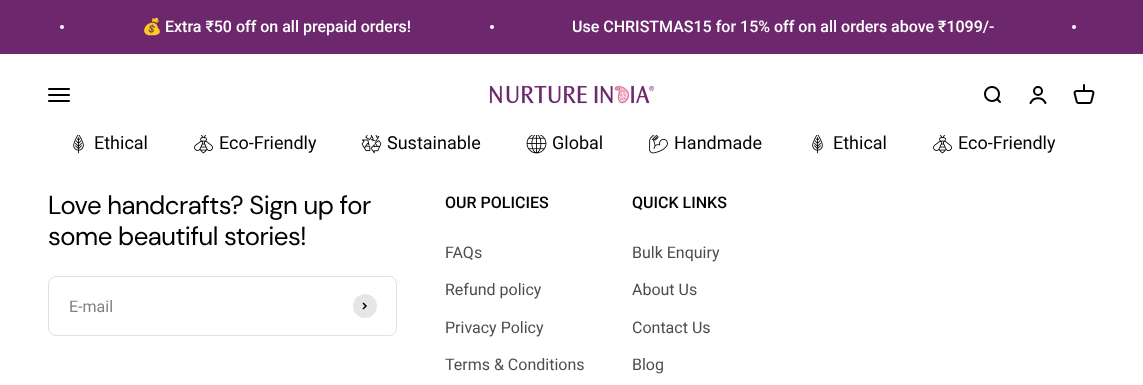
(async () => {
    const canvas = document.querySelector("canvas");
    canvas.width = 1143;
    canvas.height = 385;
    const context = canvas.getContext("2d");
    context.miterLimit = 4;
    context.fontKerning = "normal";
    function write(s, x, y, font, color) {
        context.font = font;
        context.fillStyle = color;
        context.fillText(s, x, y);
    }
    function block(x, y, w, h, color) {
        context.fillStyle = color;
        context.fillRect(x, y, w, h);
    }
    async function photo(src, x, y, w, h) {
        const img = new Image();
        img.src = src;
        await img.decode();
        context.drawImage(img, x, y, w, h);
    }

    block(0, 0, 1143, 385, "rgb(255, 255, 255)");
    block(0, 0, 1143, 54, "rgb(109, 39, 109)");
    context.fillStyle = "rgb(255, 255, 255)";
    context.beginPath();
    context.arc(62, 27, 2, 0, Math.PI * 2);
    context.fill();
    write("💰", 142, 32, "16px Noto Color Emoji", "rgb(255, 255, 255)");
    write("Extra ₹50 off on all prepaid orders!", 165, 32, "500 16px Roboto", "rgb(255, 255, 255)");
    context.beginPath();
    context.arc(492, 27, 2, 0, Math.PI * 2);
    context.fill();
    write("Use CHRISTMAS15 for 15% off on all orders above ₹1099/-", 572, 32, "500 16px Roboto", "rgb(255, 255, 255)");
    context.beginPath();
    context.arc(1074, 27, 2, 0, Math.PI * 2);
    context.fill();
    await photo("media/1.png", 48, 88, 22, 14);
    await photo("media/2.png", 489, 85, 166, 19);
    await photo("media/3.png", 984, 86, 17, 17);
    context.beginPath();
    context.arc(1038, 91, 4, 0, Math.PI * 2);
    context.strokeStyle = "rgb(0, 0, 0)";
    context.lineWidth = 2;
    context.stroke();
    context.beginPath();
    context.moveTo(1030.5, 103);
    context.bezierCurveTo(1033.5, 96.5, 1042.5, 96.5, 1045.5, 103);
    context.lineCap = "round";
    context.stroke();
    await photo("media/4.png", 1073, 84, 22, 20);
    await photo("media/5.png", 73, 135, 11, 19);
    write("Ethical", 94, 149, "18px Roboto", "rgb(0, 0, 0)");
    await photo("media/6.png", 194, 135, 19, 19);
    write("Eco-Friendly", 219, 149, "18px Roboto", "rgb(0, 0, 0)");
    await photo("media/7.png", 361, 135, 21, 19);
    write("Sustainable", 387, 149, "18px Roboto", "rgb(0, 0, 0)");
    await photo("media/8.png", 526, 135, 21, 19);
    write("Global", 552, 149, "18px Roboto", "rgb(0, 0, 0)");
    await photo("media/9.png", 649, 135, 19, 19);
    write("Handmade", 674, 149, "18px Roboto", "rgb(0, 0, 0)");
    await photo("media/5.png", 812, 135, 11, 19);
    write("Ethical", 833, 149, "18px Roboto", "rgb(0, 0, 0)");
    await photo("media/6.png", 933, 135, 19, 19);
    write("Eco-Friendly", 958, 149, "18px Roboto", "rgb(0, 0, 0)");
    context.letterSpacing = "-0.5px";
    write("Love handcrafts? Sign up for", 48, 214, "26px DM Sans", "rgb(0, 0, 0)");
    write("some beautiful stories!", 48, 245, "26px DM Sans", "rgb(0, 0, 0)");
    context.beginPath();
    context.roundRect(48.5, 276.5, 348, 59, 7.5);
    context.strokeStyle = "rgb(224, 224, 224)";
    context.lineWidth = 1;
    context.stroke();
    context.letterSpacing = "0px";
    write("E-mail", 69, 312, "16px Roboto", "rgb(128, 128, 128)");
    context.fillStyle = "rgb(230, 230, 230)";
    context.beginPath();
    context.arc(365, 306, 12, 0, Math.PI * 2);
    context.fill();
    context.beginPath();
    context.moveTo(363, 309);
    context.lineTo(366, 306);
    context.lineTo(363, 303);
    context.strokeStyle = "rgb(0, 0, 0)";
    context.lineWidth = 1.5;
    context.lineCap = "butt";
    context.stroke();
    write("OUR POLICIES", 445, 208, "500 16px Roboto", "rgb(0, 0, 0)");
    write("FAQs", 445, 258, "16px Roboto", "rgb(77, 77, 77)");
    write("Refund policy", 445, 295, "16px Roboto", "rgb(77, 77, 77)");
    write("Privacy Policy", 445, 333, "16px Roboto", "rgb(77, 77, 77)");
    write("Terms & Conditions", 445, 370, "16px Roboto", "rgb(77, 77, 77)");
    write("QUICK LINKS", 632, 208, "500 16px Roboto", "rgb(0, 0, 0)");
    write("Bulk Enquiry", 632, 258, "16px Roboto", "rgb(77, 77, 77)");
    write("About Us", 632, 295, "16px Roboto", "rgb(77, 77, 77)");
    write("Contact Us", 632, 333, "16px Roboto", "rgb(77, 77, 77)");
    write("Blog", 632, 370, "16px Roboto", "rgb(77, 77, 77)");
})();
